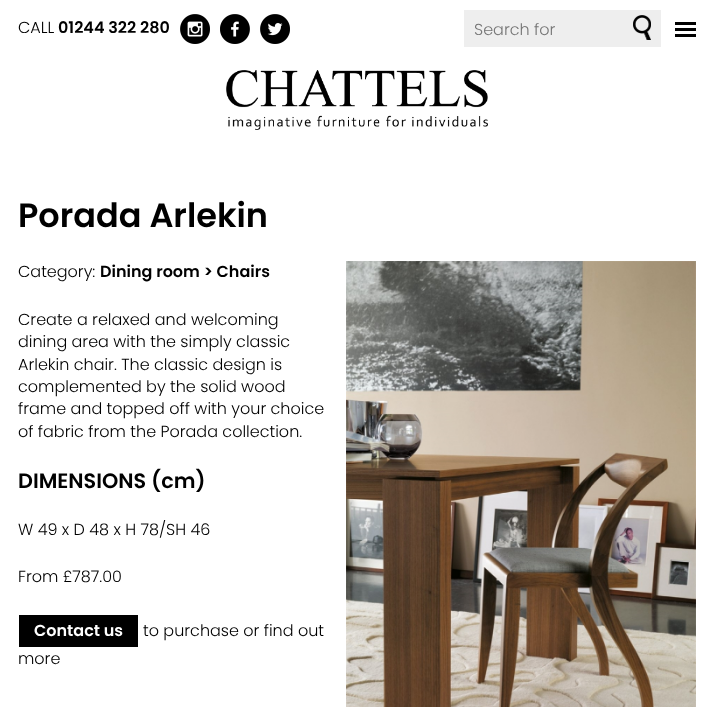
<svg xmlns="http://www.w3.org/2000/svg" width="714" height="707">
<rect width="100%" height="100%" fill="#fff"/>
<text x="18" y="33" style="font-family:Poppins;font-size:16px;font-weight:300;fill:#000">CALL</text>
<text x="58" y="33" style="font-family:Poppins;font-size:16px;font-weight:600;fill:#000">01244 322 280</text>
<image x="180" y="14" width="30" height="30" href="media/1.png"/>
<image x="220" y="14" width="30" height="30" href="media/2.png"/>
<image x="260" y="14" width="30" height="30" href="media/3.png"/>
<rect x="464" y="10" width="197" height="37" fill="#eee"/>
<text x="474" y="35" style="font-family:Poppins;font-size:16px;font-weight:300;fill:#757575">Search for</text>
<image x="633" y="15" width="18" height="25" href="media/4.png"/>
<image x="675" y="22" width="21" height="15" href="media/5.png"/>
<image x="226" y="70" width="262" height="60" href="media/6.png"/>
<text x="18" y="227" style="font-family:Poppins;font-size:33.5px;font-weight:600;fill:#000">Porada Arlekin</text>
<text x="18" y="277" style="font-family:Poppins;font-size:16px;font-weight:300;fill:#000">Category:</text>
<text x="100" y="277" style="font-family:Poppins;font-size:16px;font-weight:600;fill:#000">Dining room &gt; Chairs</text>
<image x="346" y="261" width="350" height="446" href="media/7.png"/>
<text x="18" y="325" style="font-family:Poppins;font-size:16px;font-weight:300;fill:#000">Create a relaxed and welcoming</text>
<text x="18" y="347" style="font-family:Poppins;font-size:16px;font-weight:300;fill:#000">dining area with the simply classic</text>
<text x="18" y="370" style="font-family:Poppins;font-size:16px;font-weight:300;fill:#000">Arlekin chair. The classic design is</text>
<text x="18" y="392" style="font-family:Poppins;font-size:16px;font-weight:300;fill:#000">complemented by the solid wood</text>
<text x="18" y="414" style="font-family:Poppins;font-size:16px;font-weight:300;fill:#000">frame and topped off with your choice</text>
<text x="18" y="437" style="font-family:Poppins;font-size:16px;font-weight:300;fill:#000">of fabric from the Porada collection.</text>
<text x="18" y="488" style="font-family:Poppins;font-size:20.75px;font-weight:600;fill:#000">DIMENSIONS (cm)</text>
<text x="18" y="535" style="font-family:Poppins;font-size:16px;font-weight:300;fill:#000">W 49 x D 48 x H 78/SH 46</text>
<text x="18" y="582" style="font-family:Poppins;font-size:16px;font-weight:300;fill:#000">From £787.00</text>
<rect x="19" y="615" width="119" height="32" fill="#000"/>
<text x="34" y="636" style="font-family:Poppins;font-size:16px;font-weight:600;fill:#fff">Contact us</text>
<text x="143" y="636" style="font-family:Poppins;font-size:16px;font-weight:300;fill:#000">to purchase or find out</text>
<text x="18" y="664" style="font-family:Poppins;font-size:16px;font-weight:300;fill:#000">more</text>
</svg>
